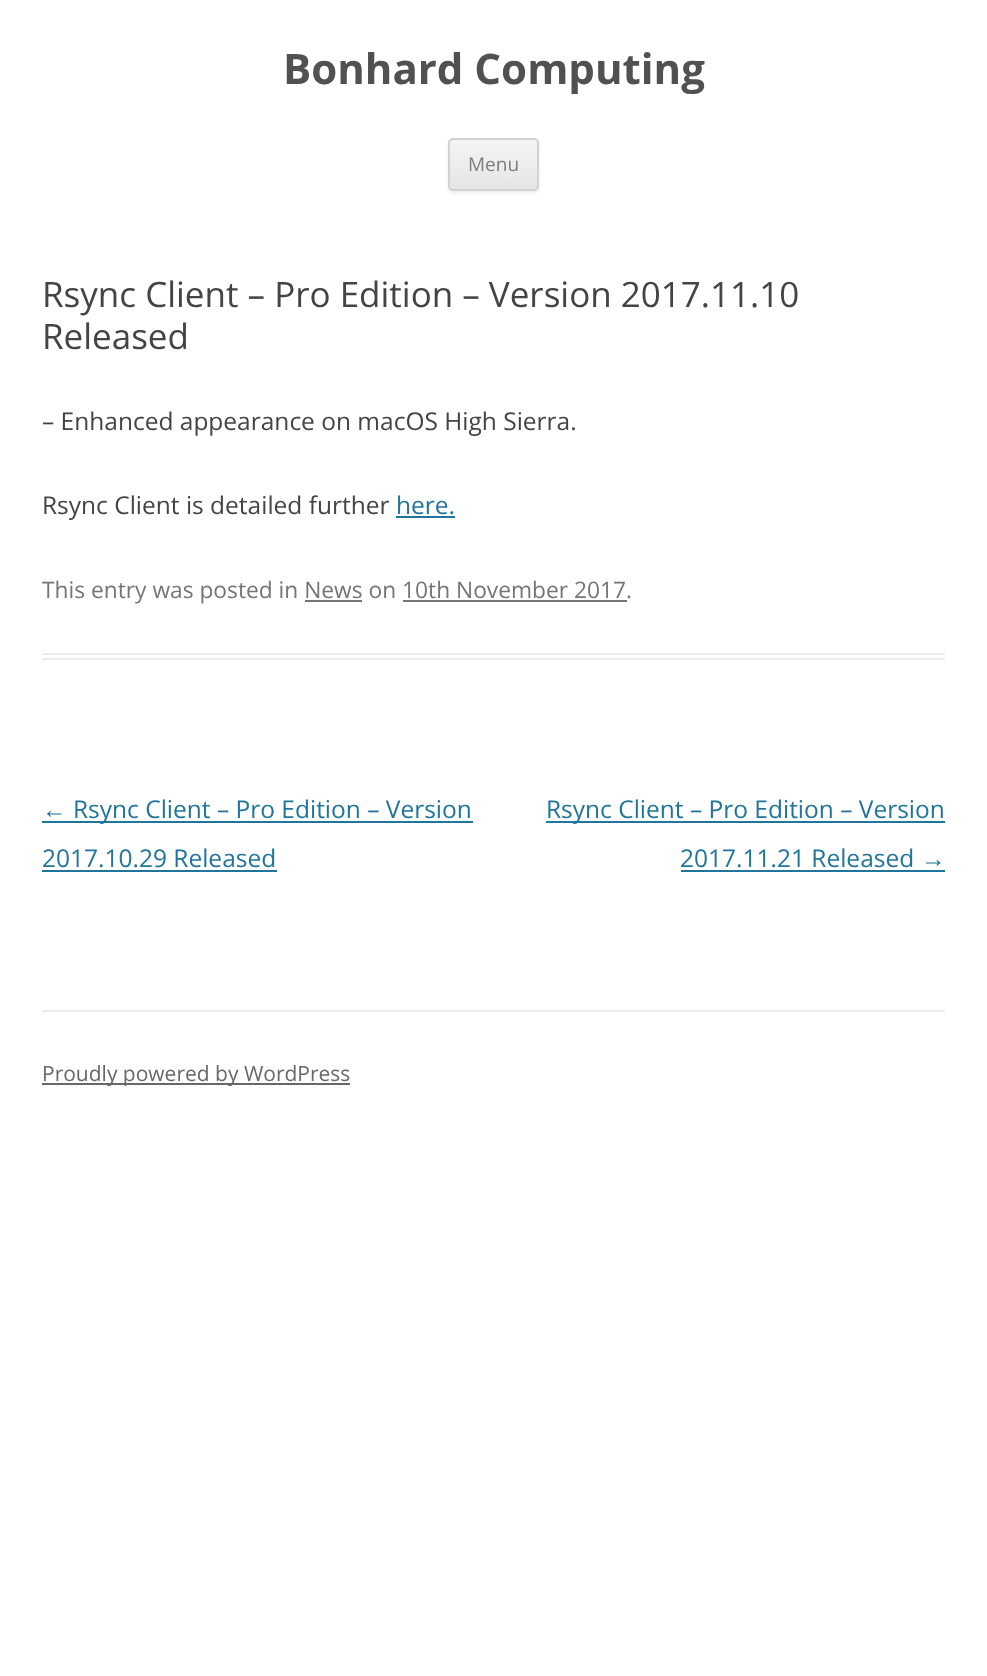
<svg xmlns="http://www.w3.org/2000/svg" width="987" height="1676">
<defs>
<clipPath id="clip1"><rect x="448" y="138" width="91" height="53" rx="5"/></clipPath>
<linearGradient id="g1" gradientUnits="userSpaceOnUse" x1="494" y1="140" x2="494" y2="189"><stop offset="0" stop-color="#f4f4f4"/><stop offset="1" stop-color="#e6e6e6"/></linearGradient>
</defs>
<rect width="100%" height="100%" fill="#fff"/>
<text x="283" y="84" style="font-family:Open Sans;font-size:42px;font-weight:bold;fill:#515151">Bonhard Computing</text>
<rect x="448" y="140" width="91" height="53" rx="5" fill="#4040401a" filter="blur(2px)"/>
<g clip-path="url(#clip1)">
<rect x="448" y="140" width="91" height="49" fill="url(#g1)"/>
</g>
<rect x="449" y="139" width="89" height="51" rx="4" fill="none" stroke="#d2d2d2" stroke-width="2"/>
<text x="468" y="171" style="font-family:Open Sans;font-size:19px;fill:#7c7c7c">Menu</text>
<rect x="42" y="653" width="903" height="2" fill="#ededed"/>
<rect x="42" y="658" width="903" height="2" fill="#ededed"/>
<text x="42" y="307" style="font-family:Open Sans;font-size:35px;fill:#444">Rsync Client – Pro Edition – Version 2017.11.10</text>
<text x="42" y="349" style="font-family:Open Sans;font-size:35px;fill:#444">Released</text>
<text x="42" y="430" style="font-family:Open Sans;font-size:24.5px;fill:#444">– Enhanced appearance on macOS High Sierra.</text>
<text x="42" y="514" style="font-family:Open Sans;font-size:24.5px;fill:#444">Rsync Client is detailed further</text>
<text x="396" y="514" style="font-family:Open Sans;font-size:24.5px;fill:#21759b">here.</text>
<rect x="396" y="516" width="59" height="2" fill="#21759b"/>
<text x="42" y="598" style="font-family:Open Sans;font-size:22.75px;fill:#757575">This entry was posted in News on 10th November 2017.</text>
<rect x="305" y="600" width="57" height="2" fill="#757575"/>
<rect x="403" y="600" width="224" height="2" fill="#757575"/>
<text x="42" y="818" style="font-family:Liberation Sans;font-size:24.5px;fill:#21759b">←</text>
<rect x="42" y="821" width="431" height="2" fill="#21759b"/>
<text x="73" y="818" style="font-family:Open Sans;font-size:24.5px;fill:#21759b">Rsync Client – Pro Edition – Version</text>
<text x="42" y="867" style="font-family:Open Sans;font-size:24.5px;fill:#21759b">2017.10.29 Released</text>
<rect x="42" y="870" width="235" height="2" fill="#21759b"/>
<rect x="546" y="821" width="399" height="2" fill="#21759b"/>
<text x="546" y="818" style="font-family:Open Sans;font-size:24.5px;fill:#21759b">Rsync Client – Pro Edition – Version</text>
<text x="680" y="867" style="font-family:Open Sans;font-size:24.5px;fill:#21759b">2017.11.21 Released</text>
<text x="921" y="867" style="font-family:Liberation Sans;font-size:24.5px;fill:#21759b">→</text>
<rect x="681" y="870" width="264" height="2" fill="#21759b"/>
<rect x="42" y="1010" width="903" height="2" fill="#ededed"/>
<rect x="42" y="1083" width="308" height="2" fill="#686868"/>
<text x="42" y="1081" style="font-family:Open Sans;font-size:21px;fill:#686868">Proudly powered by WordPress</text>
</svg>
